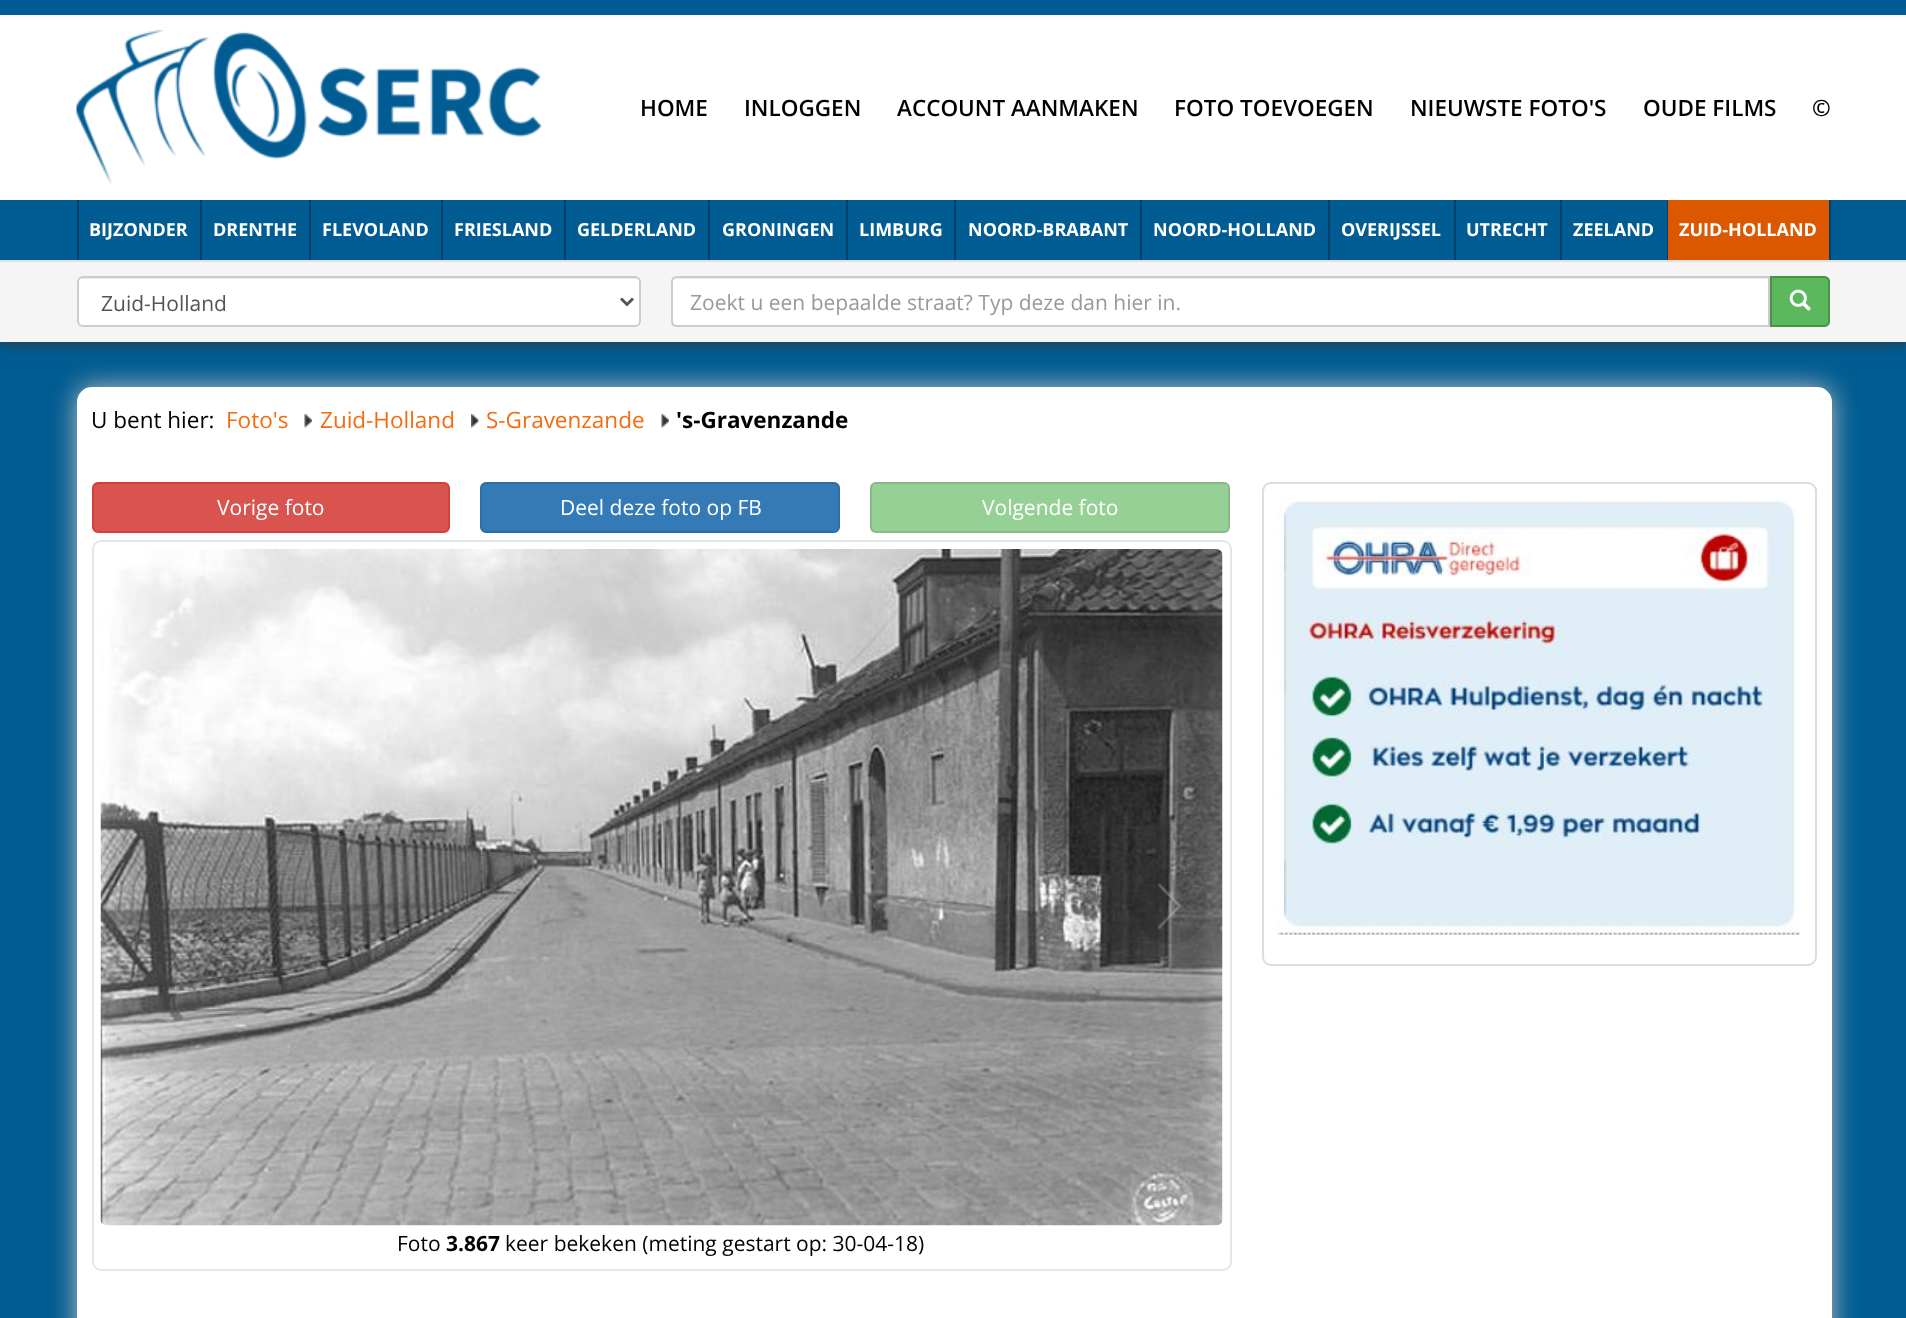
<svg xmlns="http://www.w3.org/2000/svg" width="1906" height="1318">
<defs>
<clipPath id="clip1"><rect x="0" y="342" width="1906" height="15"/></clipPath>
</defs>
<rect width="100%" height="100%" fill="#005c92"/>
<g clip-path="url(#clip1)">
<rect width="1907" height="342" fill="#333" filter="blur(7.5px)"/>
</g>
<rect y="15" width="1906" height="185" fill="#fff"/>
<image x="76" y="30" width="466" height="155" href="media/1.png"/>
<text x="640" y="116" style="font-family:Open Sans;font-size:22.5px;font-weight:600;fill:#000">HOME</text>
<text x="744" y="116" style="font-family:Open Sans;font-size:22.5px;font-weight:600;fill:#000">INLOGGEN</text>
<text x="897" y="116" style="font-family:Open Sans;font-size:22.5px;font-weight:600;fill:#000">ACCOUNT AANMAKEN</text>
<text x="1174" y="116" style="font-family:Open Sans;font-size:22.5px;font-weight:600;fill:#000">FOTO TOEVOEGEN</text>
<text x="1410" y="116" style="font-family:Open Sans;font-size:22.5px;font-weight:600;fill:#000">NIEUWSTE FOTO'S</text>
<text x="1643" y="116" style="font-family:Open Sans;font-size:22.5px;font-weight:600;fill:#000">OUDE FILMS</text>
<text x="1812" y="116" style="font-family:Open Sans;font-size:22.5px;font-weight:600;fill:#000">©</text>
<rect x="77" y="200" width="2" height="60" fill="#004066"/>
<rect x="200" y="200" width="2" height="60" fill="#004066"/>
<text x="89" y="236" style="font-family:Open Sans;font-size:18px;font-weight:bold;fill:#fff">BIJZONDER</text>
<rect x="309" y="200" width="2" height="60" fill="#004066"/>
<text x="213" y="236" style="font-family:Open Sans;font-size:18px;font-weight:bold;fill:#fff">DRENTHE</text>
<rect x="441" y="200" width="2" height="60" fill="#004066"/>
<text x="322" y="236" style="font-family:Open Sans;font-size:18px;font-weight:bold;fill:#fff">FLEVOLAND</text>
<rect x="564" y="200" width="2" height="60" fill="#004066"/>
<text x="454" y="236" style="font-family:Open Sans;font-size:18px;font-weight:bold;fill:#fff">FRIESLAND</text>
<rect x="708" y="200" width="2" height="60" fill="#004066"/>
<text x="577" y="236" style="font-family:Open Sans;font-size:18px;font-weight:bold;fill:#fff">GELDERLAND</text>
<rect x="846" y="200" width="2" height="60" fill="#004066"/>
<text x="722" y="236" style="font-family:Open Sans;font-size:18px;font-weight:bold;fill:#fff">GRONINGEN</text>
<rect x="954" y="200" width="2" height="60" fill="#004066"/>
<text x="859" y="236" style="font-family:Open Sans;font-size:18px;font-weight:bold;fill:#fff">LIMBURG</text>
<rect x="1140" y="200" width="2" height="60" fill="#004066"/>
<text x="968" y="236" style="font-family:Open Sans;font-size:18px;font-weight:bold;fill:#fff">NOORD-BRABANT</text>
<rect x="1328" y="200" width="2" height="60" fill="#004066"/>
<text x="1153" y="236" style="font-family:Open Sans;font-size:18px;font-weight:bold;fill:#fff">NOORD-HOLLAND</text>
<rect x="1454" y="200" width="2" height="60" fill="#004066"/>
<text x="1341" y="236" style="font-family:Open Sans;font-size:18px;font-weight:bold;fill:#fff">OVERIJSSEL</text>
<rect x="1560" y="200" width="2" height="60" fill="#004066"/>
<text x="1466" y="236" style="font-family:Open Sans;font-size:18px;font-weight:bold;fill:#fff">UTRECHT</text>
<rect x="1667" y="200" width="1" height="60" fill="#004066"/>
<text x="1573" y="236" style="font-family:Open Sans;font-size:18px;font-weight:bold;fill:#fff">ZEELAND</text>
<rect x="1829" y="200" width="2" height="60" fill="#004066"/>
<rect x="1668" y="200" width="161" height="60" fill="#db5800"/>
<text x="1679" y="236" style="font-family:Open Sans;font-size:18px;font-weight:bold;fill:#fff">ZUID-HOLLAND</text>
<rect y="262" width="1906" height="80" fill="#f5f5f5"/>
<rect y="260" width="1906" height="2" fill="#e0e0e0"/>
<rect x="77" y="276" width="564" height="51" rx="6" fill="#fff"/>
<path d="M82 279h552c3 0 5 2 5 5c0-3-2-6-5-6h-551c-3 0-5 3-5 6c0-3 2-5 4-5z" fill="#ececec"/>
<rect x="78" y="277" width="562" height="49" rx="5" fill="none" stroke="#ccc" stroke-width="2"/>
<path d="M621 298.5l6 6l6-6" fill="none" stroke="#555" stroke-width="3"/>
<text x="101" y="311" style="font-family:Open Sans;font-size:21px;fill:#555">Zuid-Holland</text>
<path d="M677 276h1093v51h-1093c-3.5 0-6-2.5-6-6v-39c0-3.5 2.5-6 6-6z" fill="#fff"/>
<path d="M676 279h1092v47h1v-48h-1092c-3 0-5 3-5 6c0-3 2-5 4-5z" fill="#ececec"/>
<path d="M677 277h1092v49h-1092c-3 0-5-2-5-5v-39c0-3 2-5 5-5z" fill="none" stroke="#ccc" stroke-width="2"/>
<text x="690" y="310" style="font-family:Open Sans;font-size:21px;fill:#999">Zoekt u een bepaalde straat? Typ deze dan hier in.</text>
<path d="M1770 276h54c3.5 0 6 2.5 6 6v39c0 3.5-2.5 6-6 6h-54z" fill="#5cb85c"/>
<path d="M1771 277h53c3 0 5 2 5 5v39c0 3-2 5-5 5h-53z" fill="none" stroke="#00000033" stroke-width="2"/>
<image x="1789" y="289" width="22" height="22" href="media/2.png"/>
<rect x="77" y="387" width="1755" height="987" rx="15" fill="#bfbfbf" filter="blur(13.5px)"/>
<rect x="77" y="387" width="1755" height="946" rx="15" fill="#fff"/>
<text x="91" y="428" style="font-family:Open Sans;font-size:22.5px;fill:#000">U bent hier:</text>
<text x="226" y="428" style="font-family:Open Sans;font-size:22.5px;fill:#f56b0f">Foto's</text>
<image x="304" y="414" width="8" height="14" href="media/3.png"/>
<text x="320" y="428" style="font-family:Open Sans;font-size:22.5px;fill:#f56b0f">Zuid-Holland</text>
<image x="471" y="414" width="8" height="14" href="media/4.png"/>
<text x="486" y="428" style="font-family:Open Sans;font-size:22.5px;fill:#f56b0f">S-Gravenzande</text>
<image x="661" y="414" width="8" height="14" href="media/5.png"/>
<text x="676" y="428" style="font-family:Open Sans;font-size:22.5px;font-weight:bold;fill:#000">'s-Gravenzande</text>
<rect x="93" y="483" width="356" height="49" rx="5" fill="#d9534f" stroke="#d43f3a" stroke-width="2"/>
<text x="217" y="515" style="font-family:Open Sans;font-size:21px;fill:#fff">Vorige foto</text>
<rect x="481" y="483" width="358" height="49" rx="5" fill="#337ab7" stroke="#2e6da4" stroke-width="2"/>
<text x="560" y="515" style="font-family:Open Sans;font-size:21px;fill:#fff">Deel deze foto op FB</text>
<rect x="870" y="482" width="360" height="51" rx="6" fill="#95d195"/>
<rect x="871" y="483" width="358" height="49" rx="5" fill="none" stroke="#59595933" stroke-width="2"/>
<text x="982" y="515" style="font-family:Open Sans;font-size:21px;fill:#fff">Volgende foto</text>
<rect x="93" y="541" width="1138" height="729" rx="8" fill="none" stroke="#e4e7e8" stroke-width="2"/>
<image x="100" y="549" width="1123" height="677" href="media/6.png"/>
<circle cx="1170.5" cy="906.5" r="37.5" fill="#00000017"/>
<image x="1158" y="883" width="24" height="46" href="media/7.png"/>
<text x="397" y="1251" style="font-family:Open Sans;font-size:21px;fill:#000">Foto</text>
<text x="446" y="1251" style="font-family:Open Sans;font-size:21px;font-weight:bold;fill:#000">3.867</text>
<text x="505" y="1251" style="font-family:Open Sans;font-size:21px;fill:#000">keer bekeken (meting gestart op: 30-04-18)</text>
<rect x="1263" y="483" width="553" height="482" rx="8" fill="none" stroke="#ddd" stroke-width="2"/>
<image x="1278" y="498" width="522" height="437" href="media/8.png"/>
</svg>
